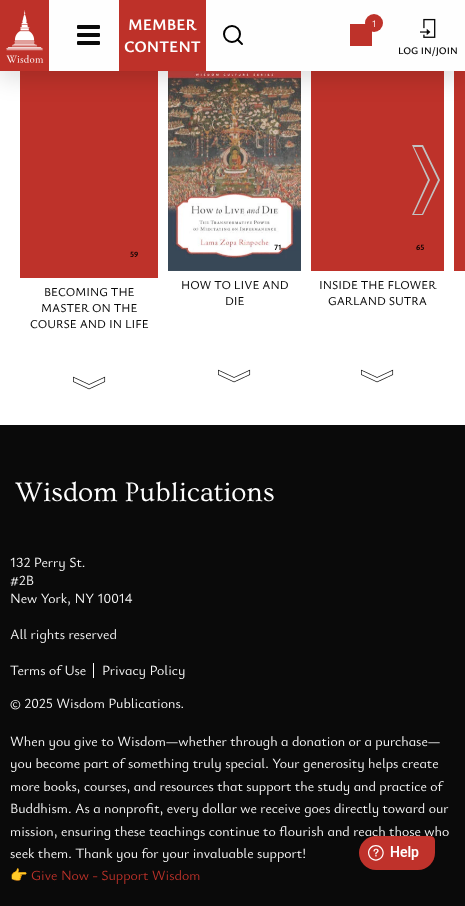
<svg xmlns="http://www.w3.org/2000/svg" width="465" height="906">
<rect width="100%" height="100%" fill="#fff"/>
<rect x="20" y="71" width="138" height="207" fill="#be322a"/>
<image x="168" y="71" width="133" height="200" href="media/4.png"/>
<rect x="311" y="71" width="133" height="200" fill="#be322a"/>
<rect x="454" y="71" width="11" height="200" fill="#be322a"/>
<rect y="6" width="465" height="71" fill="#00000026" filter="blur(12.5px)"/>
<rect x="49" width="416" height="71" fill="#fefefe"/>
<image x="0" y="0" width="49" height="71" href="media/1.png"/>
<rect x="119" width="87" height="71" fill="#be3129"/>
<text x="128" y="30" style="font-family:Ysabeau Infant;font-size:16px;font-weight:bold;fill:#fefefe">MEMBER</text>
<text x="124" y="52" style="font-family:Ysabeau Infant;font-size:16px;font-weight:bold;fill:#fefefe">CONTENT</text>
<rect x="350" y="24" width="22" height="22" fill="#be322a"/>
<circle cx="374" cy="23" r="9" fill="#be322a"/>
<text x="372" y="27" style="font-family:Ysabeau Infant;font-size:10px;fill:#fefefe">1</text>
<rect x="77" y="25" width="23" height="4" rx="1" fill="#0a0a0a"/>
<rect x="77" y="33" width="23" height="4" rx="1" fill="#0a0a0a"/>
<rect x="77" y="41" width="23" height="4" rx="1" fill="#0a0a0a"/>
<circle cx="232" cy="34" r="8" fill="none" stroke="#000" stroke-width="2"/>
<path d="M242 44l-4.5-4.5" fill="none" stroke="#000" stroke-width="2" stroke-linecap="round" stroke-linejoin="round"/>
<image x="420" y="18" width="16" height="20" href="media/2.png"/>
<text x="398" y="54" style="font-family:Ysabeau Infant;font-size:10px;font-weight:600;fill:#0a0a0a">LOG IN/JOIN</text>
<path d="M412 145h11l17 35l-17 35h-11l16-35zm10 2h-8l16 33l-16 34h8l16-34z" fill="#c2c2c2"/>
<text x="130" y="257" style="font-family:Ysabeau Infant;font-size:8px;font-weight:bold;fill:#000">59</text>
<text x="44" y="296" style="font-family:Ysabeau Infant;font-size:12px;font-weight:500;fill:#0a0a0a">BECOMING THE</text>
<text x="41" y="312" style="font-family:Ysabeau Infant;font-size:12px;font-weight:500;fill:#0a0a0a">MASTER ON THE</text>
<text x="30" y="328" style="font-family:Ysabeau Infant;font-size:12px;font-weight:500;fill:#0a0a0a">COURSE AND IN LIFE</text>
<image x="73" y="376" width="33" height="14" href="media/3.png"/>
<text x="274" y="250" style="font-family:Ysabeau Infant;font-size:8px;font-weight:bold;fill:#000">71</text>
<text x="181" y="289" style="font-family:Ysabeau Infant;font-size:12px;font-weight:500;fill:#0a0a0a">HOW TO LIVE AND</text>
<text x="225" y="305" style="font-family:Ysabeau Infant;font-size:12px;font-weight:500;fill:#0a0a0a">DIE</text>
<image x="218" y="369" width="33" height="14" href="media/3.png"/>
<text x="416" y="250" style="font-family:Ysabeau Infant;font-size:8px;font-weight:bold;fill:#000">65</text>
<text x="319" y="289" style="font-family:Ysabeau Infant;font-size:12px;font-weight:500;fill:#0a0a0a">INSIDE THE FLOWER</text>
<text x="328" y="305" style="font-family:Ysabeau Infant;font-size:12px;font-weight:500;fill:#0a0a0a">GARLAND SUTRA</text>
<image x="361" y="369" width="33" height="14" href="media/3.png"/>
<rect y="425" width="465" height="481" fill="#0a0a0a"/>
<text x="15" y="501" style="font-family:Ovo;font-size:28px;fill:#fefefe">Wisdom Publications</text>
<text x="10" y="567" style="font-family:Ysabeau Infant;font-size:14px;fill:#fefefe">132 Perry St.</text>
<text x="10" y="585" style="font-family:Ysabeau Infant;font-size:14px;fill:#fefefe">#2B</text>
<text x="10" y="603" style="font-family:Ysabeau Infant;font-size:14px;fill:#fefefe">New York, NY 10014</text>
<text x="10" y="639" style="font-family:Ysabeau Infant;font-size:14px;fill:#fefefe">All rights reserved</text>
<text x="10" y="675" style="font-family:Ysabeau Infant;font-size:14px;fill:#fefefe">Terms of Use</text>
<rect x="93" y="663" width="1" height="15" fill="#fefefe"/>
<text x="102" y="675" style="font-family:Ysabeau Infant;font-size:14px;fill:#fefefe">Privacy Policy</text>
<text x="10" y="708" style="font-family:Ysabeau Infant;font-size:14px;fill:#fefefe">© 2025 Wisdom Publications.</text>
<text x="10" y="746" style="font-family:Ysabeau Infant;font-size:14px;fill:#fefefe">When you give to Wisdom—whether through a donation or a purchase—</text>
<text x="10" y="768" style="font-family:Ysabeau Infant;font-size:14px;fill:#fefefe">you become part of something truly special. Your generosity helps create</text>
<text x="10" y="791" style="font-family:Ysabeau Infant;font-size:14px;fill:#fefefe">more books, courses, and resources that support the study and practice of</text>
<text x="10" y="813" style="font-family:Ysabeau Infant;font-size:14px;fill:#fefefe">Buddhism. As a nonprofit, every dollar we receive goes directly toward our</text>
<text x="10" y="836" style="font-family:Ysabeau Infant;font-size:14px;fill:#fefefe">mission, ensuring these teachings continue to flourish and reach those who</text>
<text x="10" y="858" style="font-family:Ysabeau Infant;font-size:14px;fill:#fefefe">seek them. Thank you for your invaluable support!</text>
<text x="10" y="880" style="font-family:Noto Color Emoji;font-size:14px;fill:#be322a">👉</text>
<text x="31" y="880" style="font-family:Ysabeau Infant;font-size:14px;fill:#be322a">Give Now - Support Wisdom</text>
<image x="359" y="836" width="77" height="34" href="media/5.png"/>
</svg>
